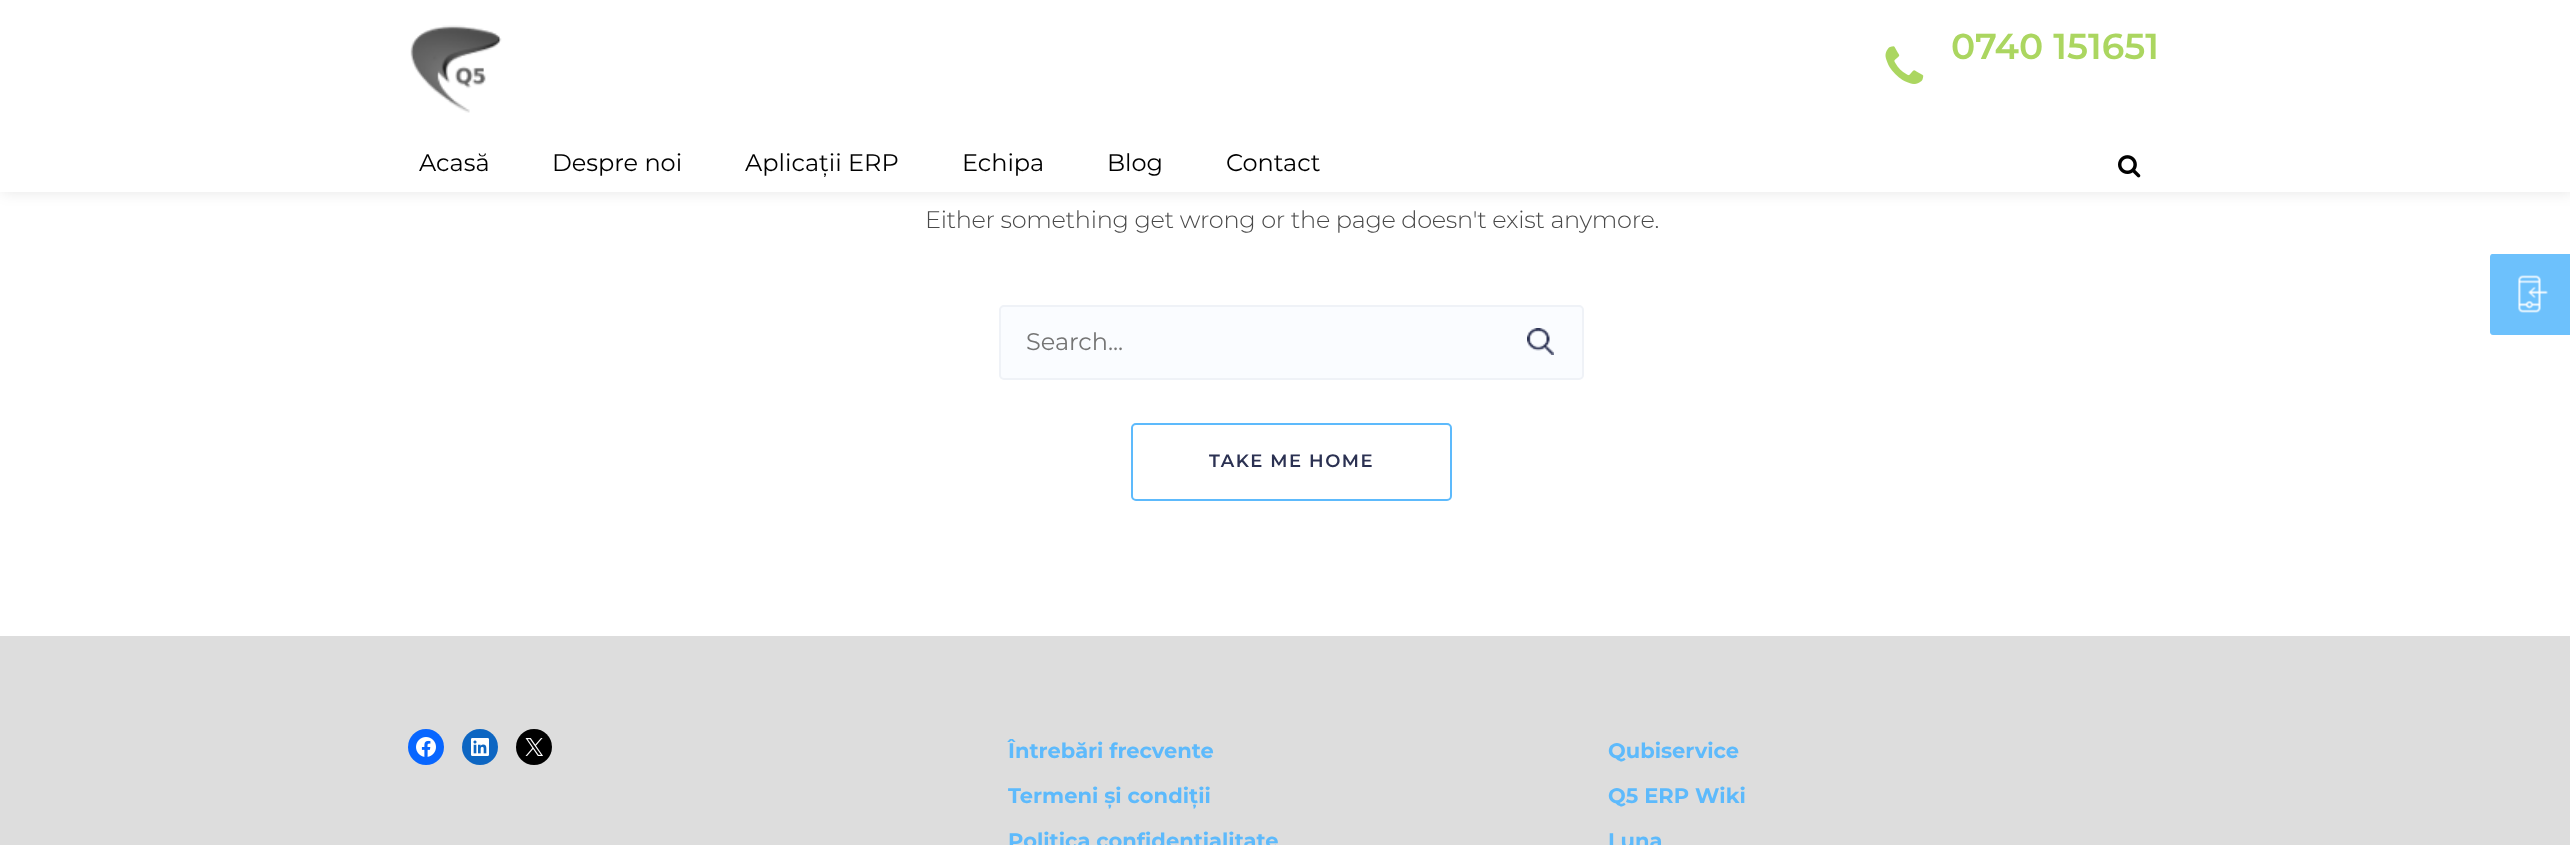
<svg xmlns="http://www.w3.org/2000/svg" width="2570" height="845">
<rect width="100%" height="100%" fill="#fff"/>
<rect x="2" width="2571" height="192" fill="#0000001a" filter="blur(7.5px)"/>
<rect width="2570" height="192" fill="#fff"/>
<image x="410" y="25" width="92" height="88" href="media/1.png"/>
<image x="1885" y="46" width="39" height="38" href="media/2.png"/>
<text x="1951" y="59" style="font-family:Montserrat;font-size:36px;font-weight:600;fill:#abd660">0740 151651</text>
<text x="419" y="171" style="font-family:Montserrat;font-size:24px;fill:#000">Acasă</text>
<text x="552" y="171" style="font-family:Montserrat;font-size:24px;fill:#000">Despre noi</text>
<text x="745" y="171" style="font-family:Montserrat;font-size:24px;fill:#000">Aplicații ERP</text>
<text x="962" y="171" style="font-family:Montserrat;font-size:24px;fill:#000">Echipa</text>
<text x="1107" y="171" style="font-family:Montserrat;font-size:24px;fill:#000">Blog</text>
<text x="1226" y="171" style="font-family:Montserrat;font-size:24px;fill:#000">Contact</text>
<image x="2118" y="155" width="23" height="23" href="media/3.png"/>
<text x="925" y="228" style="font-family:Montserrat;font-size:24px;font-weight:300;letter-spacing:-0.3px;fill:#494949">Either something get wrong or the page doesn't exist anymore.</text>
<rect x="1000" y="306" width="583" height="73" rx="4" fill="#fafcff" stroke="#eff2f7" stroke-width="2"/>
<text x="1026" y="350" style="font-family:Montserrat;font-size:24px;fill:#757575">Search...</text>
<image x="1527" y="328" width="27" height="27" href="media/4.png"/>
<rect x="1132" y="424" width="319" height="76" rx="4" fill="none" stroke="#5dbafc" stroke-width="2"/>
<text x="1209" y="467" style="font-family:Montserrat;font-size:18px;font-weight:600;letter-spacing:1.5px;fill:#2b3152">TAKE ME HOME</text>
<path d="M2490 332v-75c0-2 1-3 3-3h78v81h-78c-2 0-3-2-3-3z" fill="#6dc1fc"/>
<image x="2518" y="275" width="30" height="38" href="media/5.png"/>
<rect y="636" width="2570" height="209" fill="#ddd"/>
<circle cx="426" cy="747" r="18" fill="#0866ff"/>
<image x="416" y="737" width="20" height="20" href="media/6.png"/>
<circle cx="480" cy="747" r="18" fill="#0d66c2"/>
<image x="471" y="738" width="18" height="18" href="media/7.png"/>
<circle cx="534" cy="747" r="18" fill="#000"/>
<image x="525" y="738" width="18" height="18" href="media/8.png"/>
<text x="1008" y="758" style="font-family:Montserrat;font-size:21px;font-weight:bold;fill:#5dbafc">Întrebări frecvente</text>
<text x="1008" y="803" style="font-family:Montserrat;font-size:21px;font-weight:bold;fill:#5dbafc">Termeni și condiții</text>
<text x="1008" y="848" style="font-family:Montserrat;font-size:21px;font-weight:bold;fill:#5dbafc">Politica confidențialitate</text>
<text x="1608" y="758" style="font-family:Montserrat;font-size:21px;font-weight:bold;fill:#5dbafc">Qubiservice</text>
<text x="1608" y="803" style="font-family:Montserrat;font-size:21px;font-weight:bold;fill:#5dbafc">Q5 ERP Wiki</text>
<text x="1608" y="848" style="font-family:Montserrat;font-size:21px;font-weight:bold;fill:#5dbafc">Luna</text>
</svg>
